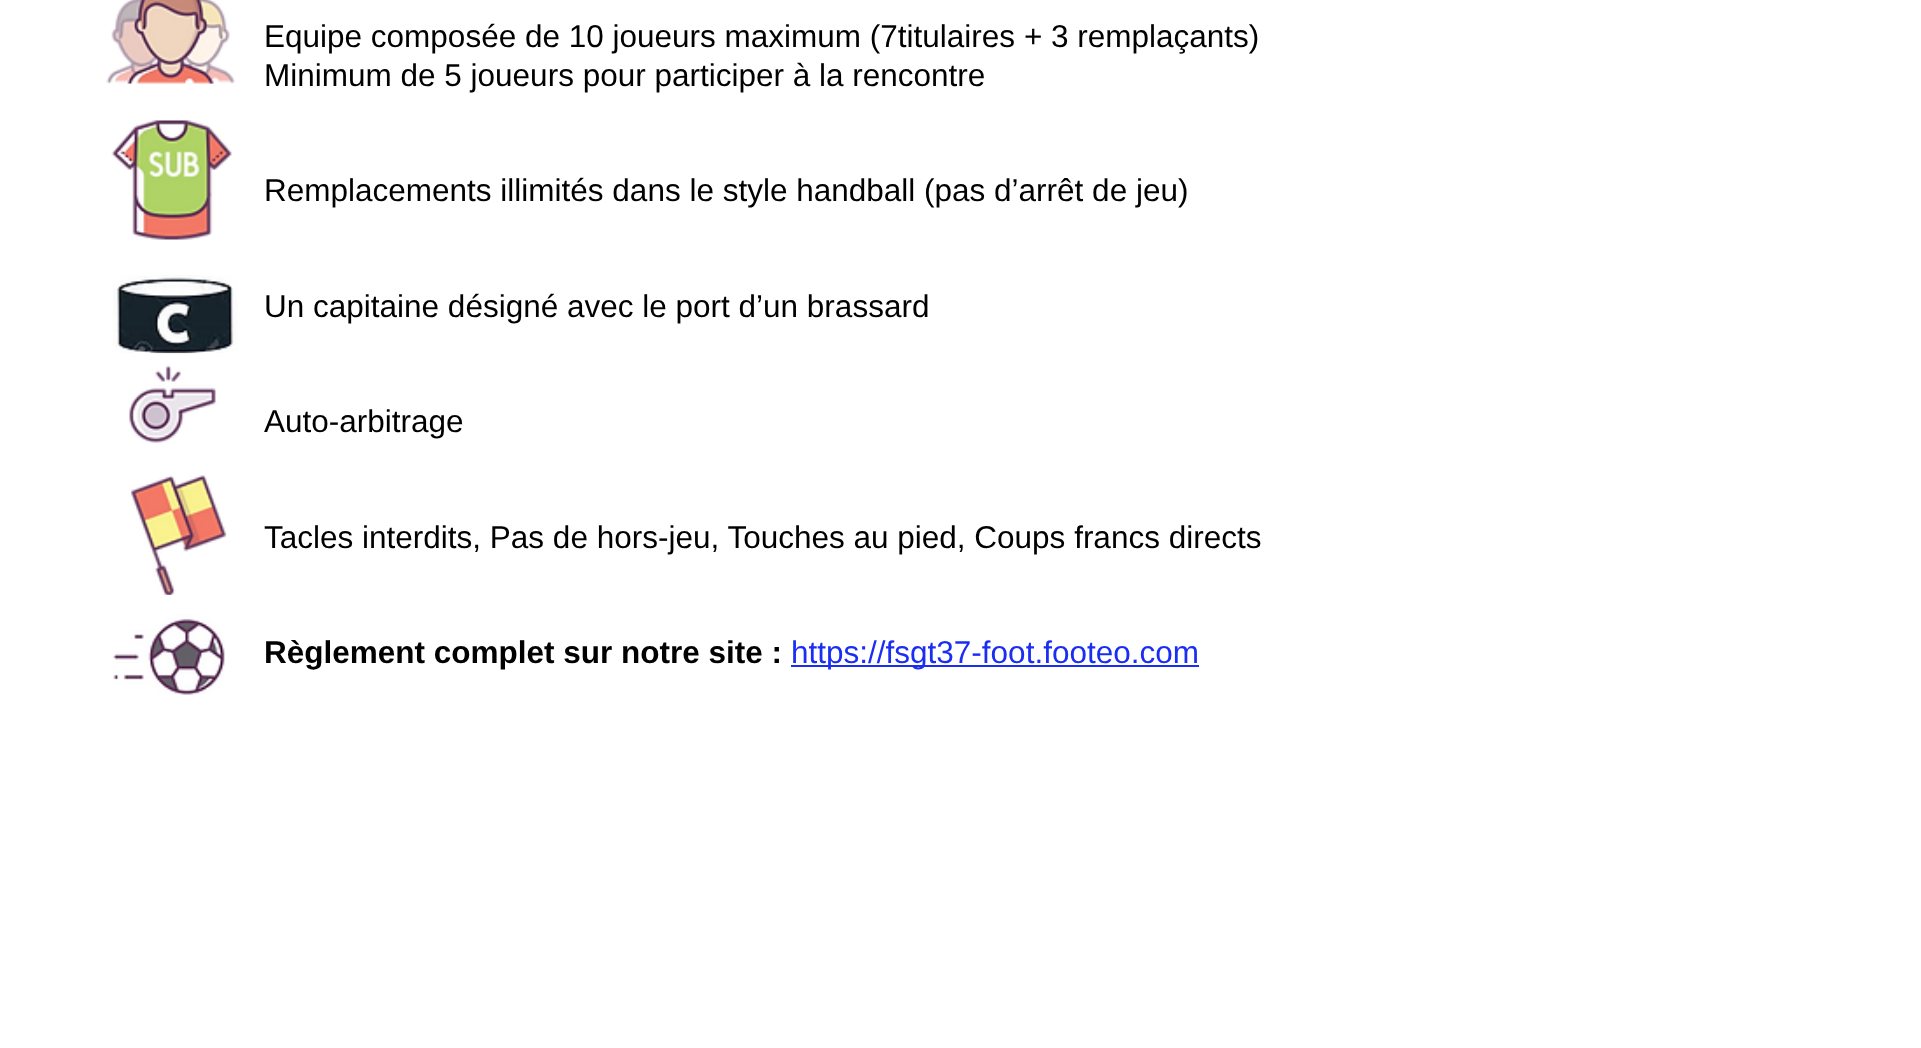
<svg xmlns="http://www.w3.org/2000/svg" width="1921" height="1048">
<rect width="100%" height="100%" fill="#fff"/>
<image x="106" y="0" width="129" height="84" href="media/1.png"/>
<text x="264" y="47" style="font-family:Liberation Sans;font-size:31.5px;fill:#000">Equipe composée de 10 joueurs maximum (7titulaires + 3 remplaçants)</text>
<text x="264" y="86" style="font-family:Liberation Sans;font-size:31.5px;fill:#000">Minimum de 5 joueurs pour participer à la rencontre</text>
<text x="264" y="201" style="font-family:Liberation Sans;font-size:31.5px;fill:#000">Remplacements illimités dans le style handball (pas d’arrêt de jeu)</text>
<text x="264" y="317" style="font-family:Liberation Sans;font-size:31.5px;fill:#000">Un capitaine désigné avec le port d’un brassard</text>
<text x="264" y="432" style="font-family:Liberation Sans;font-size:31.5px;fill:#000">Auto-arbitrage</text>
<text x="264" y="548" style="font-family:Liberation Sans;font-size:31.5px;fill:#000">Tacles interdits, Pas de hors-jeu, Touches au pied, Coups francs directs</text>
<text x="264" y="663" style="font-family:Liberation Sans;font-size:31.5px;font-weight:bold;fill:#000">Règlement complet sur notre site :</text>
<rect x="791" y="665" width="408" height="2" fill="#1a2df3"/>
<text x="791" y="663" style="font-family:Liberation Sans;font-size:31.5px;fill:#1a2df3">https://fsgt37-foot.footeo.com</text>
<image x="111" y="120" width="121" height="120" href="media/2.png"/>
<image x="112" y="275" width="126" height="79" href="media/3.png"/>
<image x="129" y="365" width="87" height="78" href="media/4.png"/>
<image x="130" y="475" width="97" height="120" href="media/5.png"/>
<image x="113" y="594" width="112" height="101" href="media/6.png"/>
</svg>
